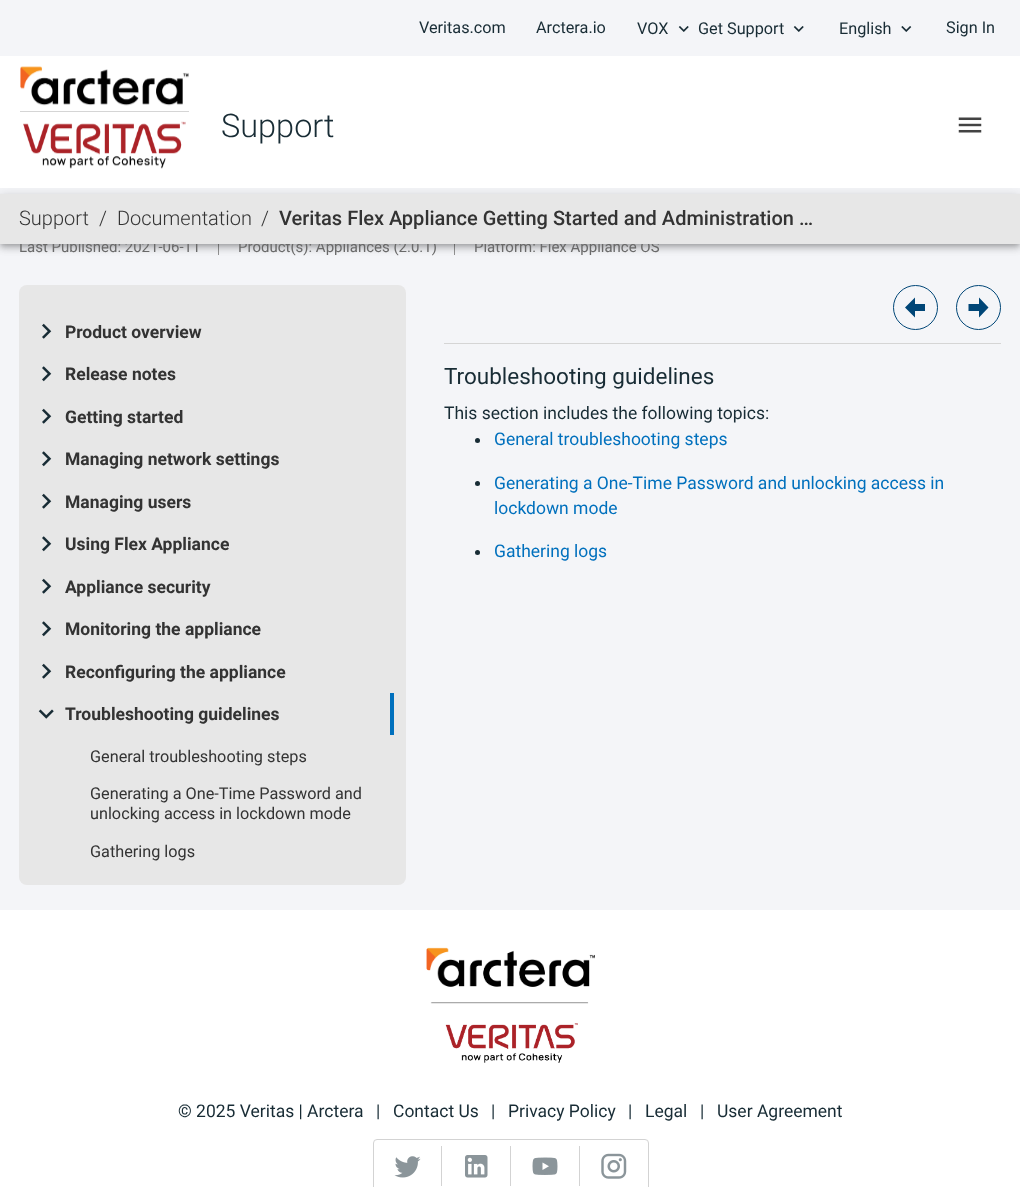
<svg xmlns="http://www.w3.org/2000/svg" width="1020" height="1187">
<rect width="100%" height="100%" fill="#f4f5f8"/>
<text x="419" y="33" style="font-family:Roboto;font-size:16.25px;fill:#182c35">Veritas.com</text>
<text x="536" y="33" style="font-family:Roboto;font-size:16.25px;fill:#182c35">Arctera.io</text>
<text x="637" y="34" style="font-family:Roboto;font-size:16.25px;fill:#182c35">VOX</text>
<image x="678" y="26" width="11" height="6" href="media/1.png"/>
<text x="698" y="34" style="font-family:Roboto;font-size:16.25px;fill:#182c35">Get Support</text>
<image x="793" y="26" width="11" height="6" href="media/1.png"/>
<text x="839" y="34" style="font-family:Roboto;font-size:16.25px;fill:#182c35">English</text>
<image x="901" y="26" width="11" height="6" href="media/2.png"/>
<text x="946" y="33" style="font-family:Roboto;font-size:16.25px;fill:#182c35">Sign In</text>
<rect x="218" y="236" width="1" height="19" fill="#939393"/>
<rect x="454" y="236" width="1" height="19" fill="#939393"/>
<rect y="195" width="1020" height="50" fill="#0000001f" filter="blur(6px)"/>
<rect y="56" width="1020" height="132" fill="#fff"/>
<image x="20" y="66" width="169" height="40" href="media/3.png"/>
<rect x="20" y="111" width="169" height="1" fill="#d5d5d5"/>
<image x="23" y="121" width="163" height="48" href="media/4.png"/>
<text x="221" y="137" style="font-family:Roboto;font-size:32.5px;font-weight:300;fill:#182c35">Support</text>
<image x="958" y="117" width="24" height="16" href="media/5.png"/>
<rect y="199" width="1020" height="50" fill="#00000024" filter="blur(3px)"/>
<rect x="1" y="198" width="1018" height="47" fill="#00000033" filter="blur(2.5px)"/>
<text x="19" y="252" style="font-family:Roboto;font-size:15px;fill:#696969">Last Published: 2021-06-11</text>
<text x="238" y="252" style="font-family:Roboto;font-size:15px;fill:#696969">Product(s): Appliances (2.0.1)</text>
<text x="474" y="252" style="font-family:Roboto;font-size:15px;fill:#696969">Platform: Flex Appliance OS</text>
<rect y="194" width="1020" height="50" fill="#e7e7e7"/>
<text x="19" y="225" style="font-family:Roboto;font-size:20px;font-weight:300;fill:#333">Support</text>
<text x="99" y="225" style="font-family:Roboto;font-size:20px;font-weight:300;fill:#333">/</text>
<text x="117" y="225" style="font-family:Roboto;font-size:20px;font-weight:300;fill:#333">Documentation</text>
<text x="261" y="225" style="font-family:Roboto;font-size:20px;font-weight:300;fill:#333">/</text>
<text x="279" y="225" style="font-family:Roboto;font-size:20px;font-weight:500;fill:#333">Veritas Flex Appliance Getting Started and Administration …</text>
<rect x="19" y="285" width="387" height="600" rx="8" fill="#e7e7e7"/>
<image x="42" y="323" width="10" height="16" href="media/6.png"/>
<text x="65" y="338" style="font-family:Roboto;font-size:17.5px;font-weight:bold;fill:#333">Product overview</text>
<image x="42" y="366" width="10" height="16" href="media/7.png"/>
<text x="65" y="380" style="font-family:Roboto;font-size:17.5px;font-weight:bold;fill:#333">Release notes</text>
<image x="42" y="408" width="10" height="16" href="media/6.png"/>
<text x="65" y="423" style="font-family:Roboto;font-size:17.5px;font-weight:bold;fill:#333">Getting started</text>
<image x="42" y="451" width="10" height="16" href="media/7.png"/>
<text x="65" y="465" style="font-family:Roboto;font-size:17.5px;font-weight:bold;fill:#333">Managing network settings</text>
<image x="42" y="493" width="10" height="16" href="media/6.png"/>
<text x="65" y="508" style="font-family:Roboto;font-size:17.5px;font-weight:bold;fill:#333">Managing users</text>
<image x="42" y="536" width="10" height="16" href="media/7.png"/>
<text x="65" y="550" style="font-family:Roboto;font-size:17.5px;font-weight:bold;fill:#333">Using Flex Appliance</text>
<image x="42" y="578" width="10" height="16" href="media/6.png"/>
<text x="65" y="593" style="font-family:Roboto;font-size:17.5px;font-weight:bold;fill:#333">Appliance security</text>
<image x="42" y="621" width="10" height="16" href="media/7.png"/>
<text x="65" y="635" style="font-family:Roboto;font-size:17.5px;font-weight:bold;fill:#333">Monitoring the appliance</text>
<image x="42" y="663" width="10" height="16" href="media/6.png"/>
<text x="65" y="678" style="font-family:Roboto;font-size:17.5px;font-weight:bold;fill:#333">Reconfiguring the appliance</text>
<rect x="390" y="693" width="4" height="42" fill="#0070bd"/>
<image x="38" y="709" width="16" height="10" href="media/8.png"/>
<text x="65" y="720" style="font-family:Roboto;font-size:17.5px;font-weight:bold;fill:#333">Troubleshooting guidelines</text>
<text x="90" y="762" style="font-family:Roboto;font-size:16.25px;fill:#333">General troubleshooting steps</text>
<text x="90" y="799" style="font-family:Roboto;font-size:16.25px;fill:#333">Generating a One-Time Password and</text>
<text x="90" y="819" style="font-family:Roboto;font-size:16.25px;fill:#333">unlocking access in lockdown mode</text>
<text x="90" y="857" style="font-family:Roboto;font-size:16.25px;fill:#333">Gathering logs</text>
<rect x="444" y="343" width="557" height="1" fill="#d5d5d5"/>
<circle cx="915.5" cy="307.5" r="22" fill="none" stroke="#004677"/>
<path d="M925 304v7h-10v6.5l-10-10l10-10v6.5z" fill="#004677"/>
<circle cx="978.5" cy="307.5" r="22" fill="none" stroke="#004677"/>
<path d="M968.5 311v-7h10.5v-6.5l9.5 10l-9.5 10v-6.5z" fill="#004677"/>
<text x="444" y="384" style="font-family:Roboto;font-size:22.5px;fill:#182c35">Troubleshooting guidelines</text>
<text x="444" y="419" style="font-family:Roboto;font-size:17.5px;fill:#182c35">This section includes the following topics:</text>
<circle cx="477.5" cy="440.5" r="2.5" fill="#182c35"/>
<text x="494" y="445" style="font-family:Roboto;font-size:17.5px;fill:#0070bd">General troubleshooting steps</text>
<circle cx="477.5" cy="483.5" r="2.5" fill="#182c35"/>
<text x="494" y="489" style="font-family:Roboto;font-size:17.5px;fill:#0070bd">Generating a One-Time Password and unlocking access in</text>
<text x="494" y="514" style="font-family:Roboto;font-size:17.5px;fill:#0070bd">lockdown mode</text>
<circle cx="477.5" cy="552.5" r="2.5" fill="#182c35"/>
<text x="494" y="557" style="font-family:Roboto;font-size:17.5px;fill:#0070bd">Gathering logs</text>
<rect y="910" width="1020" height="277" fill="#fff"/>
<image x="426" y="947" width="169" height="57" href="media/9.png"/>
<image x="445" y="1023" width="133" height="40" href="media/10.png"/>
<text x="178" y="1117" style="font-family:Roboto;font-size:17.5px;fill:#182c35">© 2025 Veritas | Arctera</text>
<text x="376" y="1117" style="font-family:Roboto;font-size:17.5px;fill:#182c35">|</text>
<text x="393" y="1117" style="font-family:Roboto;font-size:17.5px;fill:#182c35">Contact Us</text>
<text x="491" y="1117" style="font-family:Roboto;font-size:17.5px;fill:#182c35">|</text>
<text x="508" y="1117" style="font-family:Roboto;font-size:17.5px;fill:#182c35">Privacy Policy</text>
<text x="628" y="1117" style="font-family:Roboto;font-size:17.5px;fill:#182c35">|</text>
<text x="645" y="1117" style="font-family:Roboto;font-size:17.5px;fill:#182c35">Legal</text>
<text x="700" y="1117" style="font-family:Roboto;font-size:17.5px;fill:#182c35">|</text>
<text x="717" y="1117" style="font-family:Roboto;font-size:17.5px;fill:#182c35">User Agreement</text>
<rect x="373.5" y="1139.5" width="275" height="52" rx="3.5" fill="none" stroke="#d3d3d3"/>
<rect x="441" y="1146" width="1" height="40" fill="#d3d3d3"/>
<image x="394" y="1156" width="27" height="22" href="media/11.png"/>
<rect x="510" y="1146" width="1" height="40" fill="#d3d3d3"/>
<image x="465" y="1155" width="23" height="23" href="media/12.png"/>
<rect x="579" y="1146" width="1" height="40" fill="#d3d3d3"/>
<image x="532" y="1157" width="26" height="18" href="media/13.png"/>
<image x="601" y="1153" width="26" height="26" href="media/14.png"/>
</svg>
